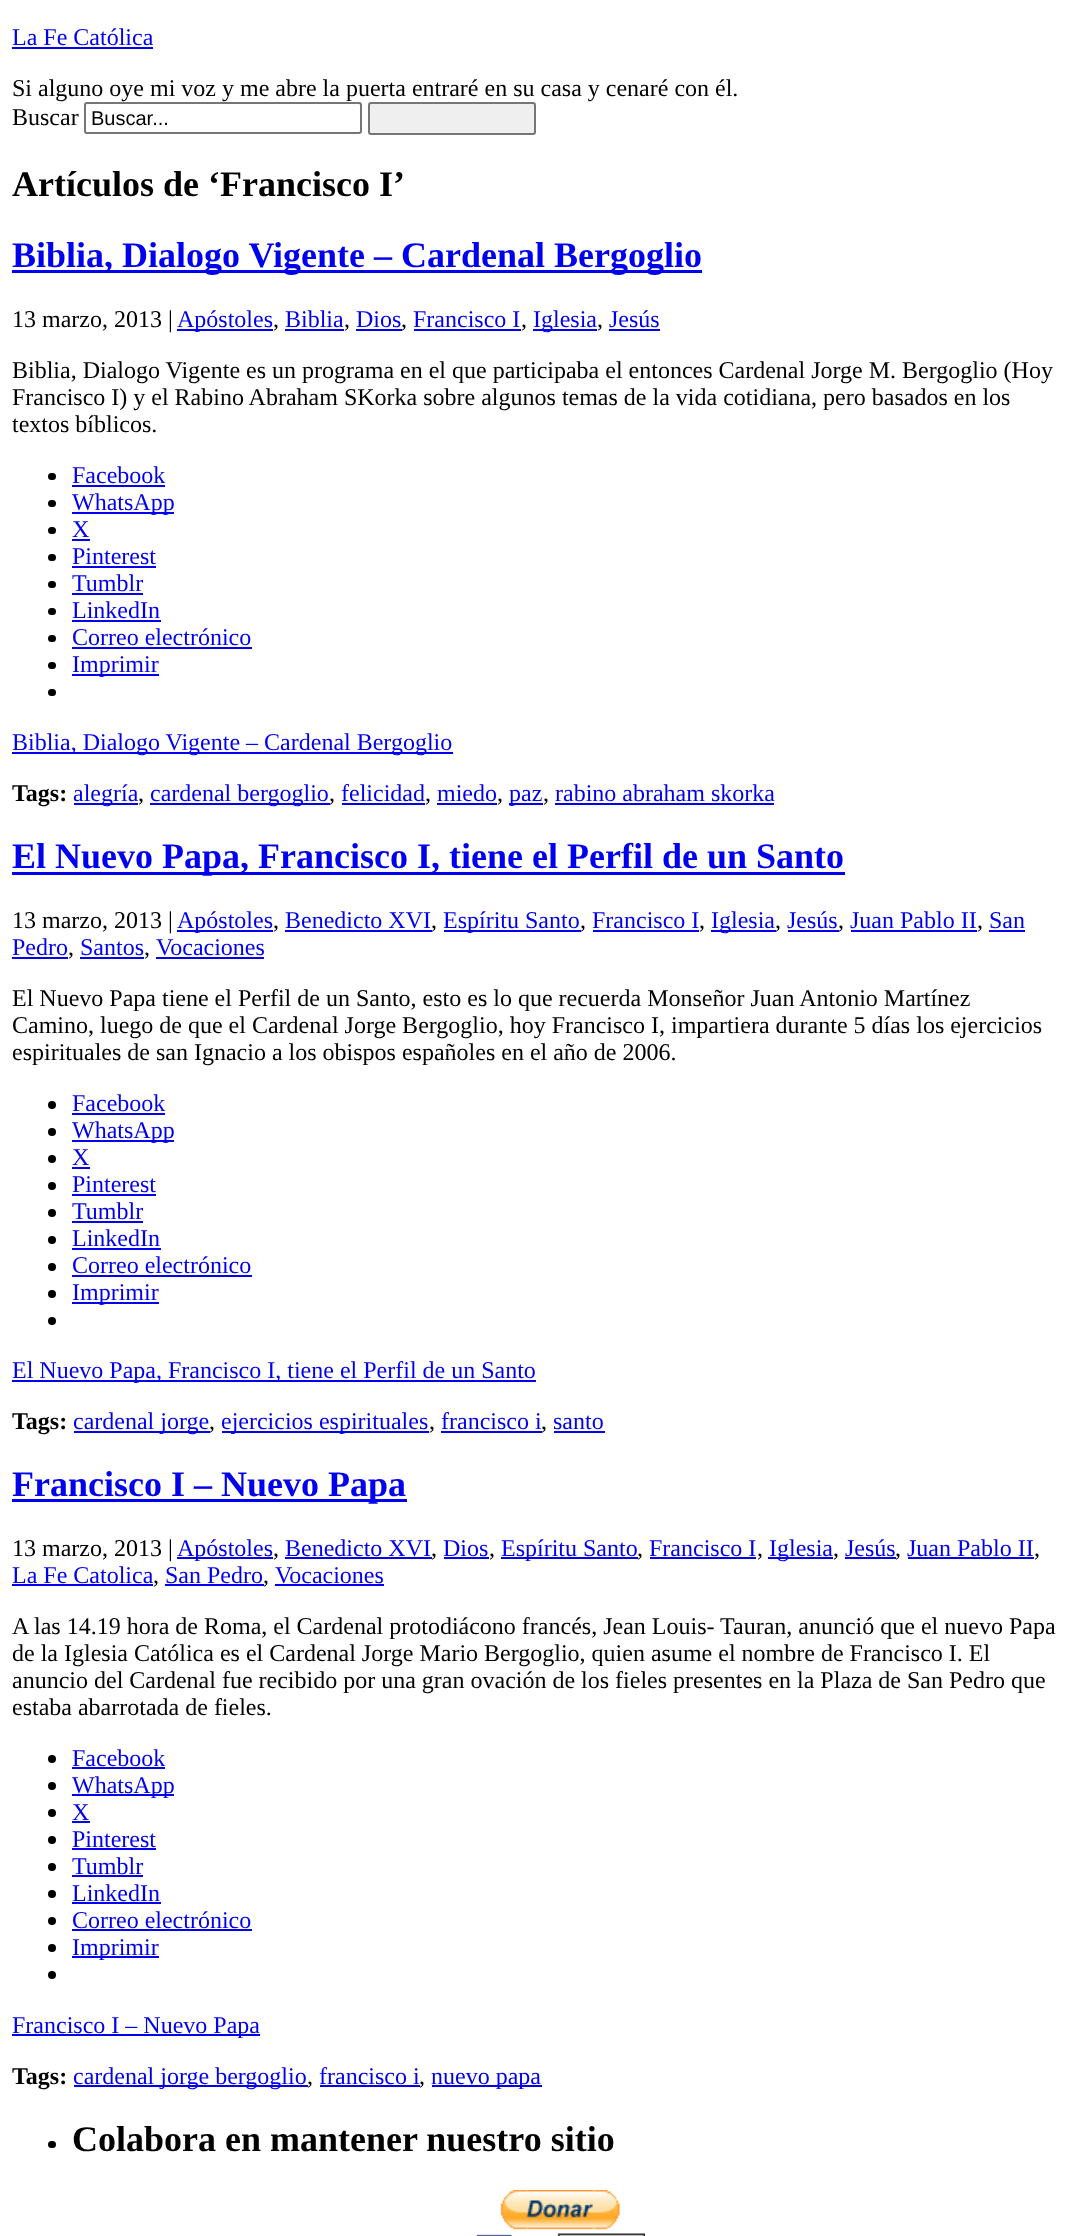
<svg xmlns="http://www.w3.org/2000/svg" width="1068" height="2236">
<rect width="100%" height="100%" fill="#fff"/>
<text x="12" y="45" style="font-family:Liberation Serif;font-size:24px;fill:#00e">La Fe Católica</text>
<rect x="12" y="47" width="141" height="2" fill="#00e"/>
<text x="12" y="96" style="font-family:Liberation Serif;font-size:24px;fill:#000">Si alguno oye mi voz y me abre la puerta entraré en su casa y cenaré con él.</text>
<text x="12" y="125" style="font-family:Liberation Serif;font-size:24px;fill:#000">Buscar</text>
<rect x="85" y="103" width="276" height="30" rx="2" fill="none" stroke="#767676" stroke-width="2"/>
<text x="91" y="125" style="font-family:Liberation Sans;font-size:20px;fill:#000">Buscar...</text>
<rect x="369" y="103" width="166" height="31" rx="2" fill="#efefef" stroke="#767676" stroke-width="2"/>
<text x="12" y="196" style="font-family:Liberation Serif;font-size:36px;font-weight:bold;fill:#000">Artículos de ‘Francisco I’</text>
<rect x="12" y="270" width="690" height="3" fill="#00e"/>
<text x="12" y="267" style="font-family:Liberation Serif;font-size:36px;font-weight:bold;fill:#00e">Biblia, Dialogo Vigente – Cardenal Bergoglio</text>
<text x="12" y="327" style="font-family:Liberation Serif;font-size:24px;fill:#000">13 marzo, 2013 |</text>
<rect x="177" y="329" width="96" height="2" fill="#00e"/>
<text x="177" y="327" style="font-family:Liberation Serif;font-size:24px;fill:#00e">Apóstoles</text>
<text x="273" y="327" style="font-family:Liberation Serif;font-size:24px;fill:#000">,</text>
<text x="285" y="327" style="font-family:Liberation Serif;font-size:24px;fill:#00e">Biblia</text>
<rect x="285" y="329" width="59" height="2" fill="#00e"/>
<text x="344" y="327" style="font-family:Liberation Serif;font-size:24px;fill:#000">,</text>
<text x="356" y="327" style="font-family:Liberation Serif;font-size:24px;fill:#00e">Dios</text>
<rect x="356" y="329" width="46" height="2" fill="#00e"/>
<text x="401" y="327" style="font-family:Liberation Serif;font-size:24px;fill:#000">,</text>
<text x="413" y="327" style="font-family:Liberation Serif;font-size:24px;fill:#00e">Francisco I</text>
<rect x="414" y="329" width="107" height="2" fill="#00e"/>
<text x="521" y="327" style="font-family:Liberation Serif;font-size:24px;fill:#000">,</text>
<rect x="533" y="329" width="64" height="2" fill="#00e"/>
<text x="533" y="327" style="font-family:Liberation Serif;font-size:24px;fill:#00e">Iglesia</text>
<text x="597" y="327" style="font-family:Liberation Serif;font-size:24px;fill:#000">,</text>
<text x="609" y="327" style="font-family:Liberation Serif;font-size:24px;fill:#00e">Jesús</text>
<rect x="609" y="329" width="51" height="2" fill="#00e"/>
<text x="12" y="378" style="font-family:Liberation Serif;font-size:24px;fill:#000">Biblia, Dialogo Vigente es un programa en el que participaba el entonces Cardenal Jorge M. Bergoglio (Hoy</text>
<text x="12" y="405" style="font-family:Liberation Serif;font-size:24px;fill:#000">Francisco I) y el Rabino Abraham SKorka sobre algunos temas de la vida cotidiana, pero basados en los</text>
<text x="12" y="432" style="font-family:Liberation Serif;font-size:24px;fill:#000">textos bíblicos.</text>
<rect x="48" y="473" width="8" height="7" rx="3.5" fill="#000"/>
<text x="72" y="483" style="font-family:Liberation Serif;font-size:24px;fill:#00e">Facebook</text>
<rect x="72" y="485" width="93" height="2" fill="#00e"/>
<rect x="48" y="500" width="8" height="7" rx="3.5" fill="#000"/>
<rect x="72" y="512" width="102" height="2" fill="#00e"/>
<text x="72" y="510" style="font-family:Liberation Serif;font-size:24px;fill:#00e">WhatsApp</text>
<rect x="48" y="527" width="8" height="7" rx="3.5" fill="#000"/>
<text x="72" y="537" style="font-family:Liberation Serif;font-size:24px;fill:#00e">X</text>
<rect x="72" y="539" width="18" height="2" fill="#00e"/>
<rect x="48" y="554" width="8" height="7" rx="3.5" fill="#000"/>
<text x="72" y="564" style="font-family:Liberation Serif;font-size:24px;fill:#00e">Pinterest</text>
<rect x="72" y="566" width="84" height="2" fill="#00e"/>
<rect x="48" y="581" width="8" height="7" rx="3.5" fill="#000"/>
<text x="72" y="591" style="font-family:Liberation Serif;font-size:24px;fill:#00e">Tumblr</text>
<rect x="72" y="593" width="71" height="2" fill="#00e"/>
<rect x="48" y="608" width="8" height="7" rx="3.5" fill="#000"/>
<text x="72" y="618" style="font-family:Liberation Serif;font-size:24px;fill:#00e">LinkedIn</text>
<rect x="72" y="620" width="89" height="2" fill="#00e"/>
<rect x="48" y="635" width="8" height="7" rx="3.5" fill="#000"/>
<text x="72" y="645" style="font-family:Liberation Serif;font-size:24px;fill:#00e">Correo electrónico</text>
<rect x="72" y="647" width="180" height="2" fill="#00e"/>
<rect x="48" y="662" width="8" height="7" rx="3.5" fill="#000"/>
<rect x="72" y="674" width="87" height="2" fill="#00e"/>
<text x="72" y="672" style="font-family:Liberation Serif;font-size:24px;fill:#00e">Imprimir</text>
<rect x="48" y="689" width="8" height="7" rx="3.5" fill="#000"/>
<rect x="12" y="752" width="441" height="2" fill="#00e"/>
<text x="12" y="750" style="font-family:Liberation Serif;font-size:24px;fill:#00e">Biblia, Dialogo Vigente – Cardenal Bergoglio</text>
<text x="12" y="801" style="font-family:Liberation Serif;font-size:24px;font-weight:bold;fill:#000">Tags:</text>
<rect x="74" y="803" width="64" height="2" fill="#00e"/>
<text x="73" y="801" style="font-family:Liberation Serif;font-size:24px;fill:#00e">alegría</text>
<text x="138" y="801" style="font-family:Liberation Serif;font-size:24px;fill:#000">,</text>
<rect x="150" y="803" width="180" height="2" fill="#00e"/>
<text x="150" y="801" style="font-family:Liberation Serif;font-size:24px;fill:#00e">cardenal bergoglio</text>
<text x="329" y="801" style="font-family:Liberation Serif;font-size:24px;fill:#000">,</text>
<text x="341" y="801" style="font-family:Liberation Serif;font-size:24px;fill:#00e">felicidad</text>
<rect x="342" y="803" width="83" height="2" fill="#00e"/>
<text x="425" y="801" style="font-family:Liberation Serif;font-size:24px;fill:#000">,</text>
<text x="437" y="801" style="font-family:Liberation Serif;font-size:24px;fill:#00e">miedo</text>
<rect x="437" y="803" width="60" height="2" fill="#00e"/>
<text x="497" y="801" style="font-family:Liberation Serif;font-size:24px;fill:#000">,</text>
<rect x="509" y="803" width="34" height="2" fill="#00e"/>
<text x="509" y="801" style="font-family:Liberation Serif;font-size:24px;fill:#00e">paz</text>
<text x="543" y="801" style="font-family:Liberation Serif;font-size:24px;fill:#000">,</text>
<text x="555" y="801" style="font-family:Liberation Serif;font-size:24px;fill:#00e">rabino abraham skorka</text>
<rect x="555" y="803" width="219" height="2" fill="#00e"/>
<rect x="12" y="872" width="833" height="3" fill="#00e"/>
<text x="12" y="868" style="font-family:Liberation Serif;font-size:36px;font-weight:bold;fill:#00e">El Nuevo Papa, Francisco I, tiene el Perfil de un Santo</text>
<text x="12" y="928" style="font-family:Liberation Serif;font-size:24px;fill:#000">13 marzo, 2013 |</text>
<rect x="177" y="930" width="96" height="2" fill="#00e"/>
<text x="177" y="928" style="font-family:Liberation Serif;font-size:24px;fill:#00e">Apóstoles</text>
<text x="273" y="928" style="font-family:Liberation Serif;font-size:24px;fill:#000">,</text>
<text x="285" y="928" style="font-family:Liberation Serif;font-size:24px;fill:#00e">Benedicto XVI</text>
<rect x="285" y="930" width="147" height="2" fill="#00e"/>
<text x="431" y="928" style="font-family:Liberation Serif;font-size:24px;fill:#000">,</text>
<rect x="444" y="930" width="137" height="2" fill="#00e"/>
<text x="443" y="928" style="font-family:Liberation Serif;font-size:24px;fill:#00e">Espíritu Santo</text>
<text x="580" y="928" style="font-family:Liberation Serif;font-size:24px;fill:#000">,</text>
<text x="592" y="928" style="font-family:Liberation Serif;font-size:24px;fill:#00e">Francisco I</text>
<rect x="593" y="930" width="106" height="2" fill="#00e"/>
<text x="699" y="928" style="font-family:Liberation Serif;font-size:24px;fill:#000">,</text>
<rect x="711" y="930" width="65" height="2" fill="#00e"/>
<text x="711" y="928" style="font-family:Liberation Serif;font-size:24px;fill:#00e">Iglesia</text>
<text x="775" y="928" style="font-family:Liberation Serif;font-size:24px;fill:#000">,</text>
<text x="787" y="928" style="font-family:Liberation Serif;font-size:24px;fill:#00e">Jesús</text>
<rect x="788" y="930" width="51" height="2" fill="#00e"/>
<text x="838" y="928" style="font-family:Liberation Serif;font-size:24px;fill:#000">,</text>
<text x="850" y="928" style="font-family:Liberation Serif;font-size:24px;fill:#00e">Juan Pablo II</text>
<rect x="851" y="930" width="126" height="2" fill="#00e"/>
<text x="977" y="928" style="font-family:Liberation Serif;font-size:24px;fill:#000">,</text>
<text x="989" y="928" style="font-family:Liberation Serif;font-size:24px;fill:#00e">San</text>
<rect x="989" y="930" width="36" height="2" fill="#00e"/>
<text x="12" y="955" style="font-family:Liberation Serif;font-size:24px;fill:#00e">Pedro</text>
<rect x="12" y="957" width="56" height="2" fill="#00e"/>
<text x="68" y="955" style="font-family:Liberation Serif;font-size:24px;fill:#000">,</text>
<text x="80" y="955" style="font-family:Liberation Serif;font-size:24px;fill:#00e">Santos</text>
<rect x="80" y="957" width="64" height="2" fill="#00e"/>
<text x="144" y="955" style="font-family:Liberation Serif;font-size:24px;fill:#000">,</text>
<text x="156" y="955" style="font-family:Liberation Serif;font-size:24px;fill:#00e">Vocaciones</text>
<rect x="156" y="957" width="108" height="2" fill="#00e"/>
<text x="12" y="1006" style="font-family:Liberation Serif;font-size:24px;fill:#000">El Nuevo Papa tiene el Perfil de un Santo, esto es lo que recuerda Monseñor Juan Antonio Martínez</text>
<text x="12" y="1033" style="font-family:Liberation Serif;font-size:24px;fill:#000">Camino, luego de que el Cardenal Jorge Bergoglio, hoy Francisco I, impartiera durante 5 días los ejercicios</text>
<text x="12" y="1060" style="font-family:Liberation Serif;font-size:24px;fill:#000">espirituales de san Ignacio a los obispos españoles en el año de 2006.</text>
<circle cx="52" cy="1105" r="4" fill="#000"/>
<text x="72" y="1111" style="font-family:Liberation Serif;font-size:24px;fill:#00e">Facebook</text>
<rect x="72" y="1113" width="93" height="2" fill="#00e"/>
<circle cx="52" cy="1132" r="4" fill="#000"/>
<rect x="72" y="1140" width="102" height="2" fill="#00e"/>
<text x="72" y="1138" style="font-family:Liberation Serif;font-size:24px;fill:#00e">WhatsApp</text>
<circle cx="52" cy="1159" r="4" fill="#000"/>
<text x="72" y="1165" style="font-family:Liberation Serif;font-size:24px;fill:#00e">X</text>
<rect x="72" y="1167" width="18" height="2" fill="#00e"/>
<circle cx="52" cy="1186" r="4" fill="#000"/>
<text x="72" y="1192" style="font-family:Liberation Serif;font-size:24px;fill:#00e">Pinterest</text>
<rect x="72" y="1194" width="84" height="2" fill="#00e"/>
<circle cx="52" cy="1213" r="4" fill="#000"/>
<text x="72" y="1219" style="font-family:Liberation Serif;font-size:24px;fill:#00e">Tumblr</text>
<rect x="72" y="1221" width="71" height="2" fill="#00e"/>
<circle cx="52" cy="1240" r="4" fill="#000"/>
<text x="72" y="1246" style="font-family:Liberation Serif;font-size:24px;fill:#00e">LinkedIn</text>
<rect x="72" y="1248" width="89" height="2" fill="#00e"/>
<circle cx="52" cy="1267" r="4" fill="#000"/>
<text x="72" y="1273" style="font-family:Liberation Serif;font-size:24px;fill:#00e">Correo electrónico</text>
<rect x="72" y="1275" width="180" height="2" fill="#00e"/>
<circle cx="52" cy="1294" r="4" fill="#000"/>
<rect x="72" y="1302" width="87" height="2" fill="#00e"/>
<text x="72" y="1300" style="font-family:Liberation Serif;font-size:24px;fill:#00e">Imprimir</text>
<circle cx="52" cy="1321" r="4" fill="#000"/>
<rect x="12" y="1380" width="524" height="2" fill="#00e"/>
<text x="12" y="1378" style="font-family:Liberation Serif;font-size:24px;fill:#00e">El Nuevo Papa, Francisco I, tiene el Perfil de un Santo</text>
<text x="12" y="1429" style="font-family:Liberation Serif;font-size:24px;font-weight:bold;fill:#000">Tags:</text>
<rect x="74" y="1431" width="136" height="2" fill="#00e"/>
<text x="73" y="1429" style="font-family:Liberation Serif;font-size:24px;fill:#00e">cardenal jorge</text>
<text x="209" y="1429" style="font-family:Liberation Serif;font-size:24px;fill:#000">,</text>
<rect x="222" y="1431" width="207" height="2" fill="#00e"/>
<text x="221" y="1429" style="font-family:Liberation Serif;font-size:24px;fill:#00e">ejercicios espirituales</text>
<text x="429" y="1429" style="font-family:Liberation Serif;font-size:24px;fill:#000">,</text>
<text x="441" y="1429" style="font-family:Liberation Serif;font-size:24px;fill:#00e">francisco i</text>
<rect x="441" y="1431" width="101" height="2" fill="#00e"/>
<text x="541" y="1429" style="font-family:Liberation Serif;font-size:24px;fill:#000">,</text>
<text x="553" y="1429" style="font-family:Liberation Serif;font-size:24px;fill:#00e">santo</text>
<rect x="554" y="1431" width="51" height="2" fill="#00e"/>
<rect x="12" y="1499" width="395" height="3" fill="#00e"/>
<text x="12" y="1496" style="font-family:Liberation Serif;font-size:36px;font-weight:bold;fill:#00e">Francisco I – Nuevo Papa</text>
<text x="12" y="1556" style="font-family:Liberation Serif;font-size:24px;fill:#000">13 marzo, 2013 |</text>
<rect x="177" y="1557" width="96" height="2" fill="#00e"/>
<text x="177" y="1556" style="font-family:Liberation Serif;font-size:24px;fill:#00e">Apóstoles</text>
<text x="273" y="1556" style="font-family:Liberation Serif;font-size:24px;fill:#000">,</text>
<text x="285" y="1556" style="font-family:Liberation Serif;font-size:24px;fill:#00e">Benedicto XVI</text>
<rect x="285" y="1557" width="147" height="2" fill="#00e"/>
<text x="431" y="1556" style="font-family:Liberation Serif;font-size:24px;fill:#000">,</text>
<text x="443" y="1556" style="font-family:Liberation Serif;font-size:24px;fill:#00e">Dios</text>
<rect x="444" y="1557" width="45" height="2" fill="#00e"/>
<text x="489" y="1556" style="font-family:Liberation Serif;font-size:24px;fill:#000">,</text>
<rect x="501" y="1557" width="137" height="2" fill="#00e"/>
<text x="501" y="1556" style="font-family:Liberation Serif;font-size:24px;fill:#00e">Espíritu Santo</text>
<text x="637" y="1556" style="font-family:Liberation Serif;font-size:24px;fill:#000">,</text>
<text x="649" y="1556" style="font-family:Liberation Serif;font-size:24px;fill:#00e">Francisco I</text>
<rect x="650" y="1557" width="106" height="2" fill="#00e"/>
<text x="757" y="1556" style="font-family:Liberation Serif;font-size:24px;fill:#000">,</text>
<rect x="768" y="1557" width="65" height="2" fill="#00e"/>
<text x="769" y="1556" style="font-family:Liberation Serif;font-size:24px;fill:#00e">Iglesia</text>
<text x="833" y="1556" style="font-family:Liberation Serif;font-size:24px;fill:#000">,</text>
<text x="845" y="1556" style="font-family:Liberation Serif;font-size:24px;fill:#00e">Jesús</text>
<rect x="845" y="1557" width="51" height="2" fill="#00e"/>
<text x="895" y="1556" style="font-family:Liberation Serif;font-size:24px;fill:#000">,</text>
<text x="907" y="1556" style="font-family:Liberation Serif;font-size:24px;fill:#00e">Juan Pablo II</text>
<rect x="908" y="1557" width="126" height="2" fill="#00e"/>
<text x="1034" y="1556" style="font-family:Liberation Serif;font-size:24px;fill:#000">,</text>
<text x="12" y="1583" style="font-family:Liberation Serif;font-size:24px;fill:#00e">La Fe Catolica</text>
<rect x="12" y="1584" width="141" height="2" fill="#00e"/>
<text x="153" y="1583" style="font-family:Liberation Serif;font-size:24px;fill:#000">,</text>
<text x="165" y="1583" style="font-family:Liberation Serif;font-size:24px;fill:#00e">San Pedro</text>
<rect x="165" y="1584" width="99" height="2" fill="#00e"/>
<text x="263" y="1583" style="font-family:Liberation Serif;font-size:24px;fill:#000">,</text>
<text x="275" y="1583" style="font-family:Liberation Serif;font-size:24px;fill:#00e">Vocaciones</text>
<rect x="275" y="1584" width="109" height="2" fill="#00e"/>
<text x="12" y="1634" style="font-family:Liberation Serif;font-size:24px;fill:#000">A las 14.19 hora de Roma, el Cardenal protodiácono francés, Jean Louis- Tauran, anunció que el nuevo Papa</text>
<text x="12" y="1661" style="font-family:Liberation Serif;font-size:24px;fill:#000">de la Iglesia Católica es el Cardenal Jorge Mario Bergoglio, quien asume el nombre de Francisco I. El</text>
<text x="12" y="1688" style="font-family:Liberation Serif;font-size:24px;fill:#000">anuncio del Cardenal fue recibido por una gran ovación de los fieles presentes en la Plaza de San Pedro que</text>
<text x="12" y="1715" style="font-family:Liberation Serif;font-size:24px;fill:#000">estaba abarrotada de fieles.</text>
<circle cx="52" cy="1759" r="4" fill="#000"/>
<text x="72" y="1766" style="font-family:Liberation Serif;font-size:24px;fill:#00e">Facebook</text>
<rect x="72" y="1767" width="93" height="2" fill="#00e"/>
<circle cx="52" cy="1786" r="4" fill="#000"/>
<rect x="72" y="1794" width="102" height="2" fill="#00e"/>
<text x="72" y="1793" style="font-family:Liberation Serif;font-size:24px;fill:#00e">WhatsApp</text>
<circle cx="52" cy="1813" r="4" fill="#000"/>
<text x="72" y="1820" style="font-family:Liberation Serif;font-size:24px;fill:#00e">X</text>
<rect x="72" y="1821" width="18" height="2" fill="#00e"/>
<circle cx="52" cy="1840" r="4" fill="#000"/>
<text x="72" y="1847" style="font-family:Liberation Serif;font-size:24px;fill:#00e">Pinterest</text>
<rect x="72" y="1848" width="84" height="2" fill="#00e"/>
<circle cx="52" cy="1867" r="4" fill="#000"/>
<text x="72" y="1874" style="font-family:Liberation Serif;font-size:24px;fill:#00e">Tumblr</text>
<rect x="72" y="1875" width="71" height="2" fill="#00e"/>
<circle cx="52" cy="1894" r="4" fill="#000"/>
<text x="72" y="1901" style="font-family:Liberation Serif;font-size:24px;fill:#00e">LinkedIn</text>
<rect x="72" y="1902" width="89" height="2" fill="#00e"/>
<circle cx="52" cy="1921" r="4" fill="#000"/>
<text x="72" y="1928" style="font-family:Liberation Serif;font-size:24px;fill:#00e">Correo electrónico</text>
<rect x="72" y="1929" width="180" height="2" fill="#00e"/>
<circle cx="52" cy="1948" r="4" fill="#000"/>
<rect x="72" y="1956" width="87" height="2" fill="#00e"/>
<text x="72" y="1955" style="font-family:Liberation Serif;font-size:24px;fill:#00e">Imprimir</text>
<circle cx="52" cy="1975" r="4" fill="#000"/>
<rect x="12" y="2034" width="248" height="2" fill="#00e"/>
<text x="12" y="2033" style="font-family:Liberation Serif;font-size:24px;fill:#00e">Francisco I – Nuevo Papa</text>
<text x="12" y="2084" style="font-family:Liberation Serif;font-size:24px;font-weight:bold;fill:#000">Tags:</text>
<rect x="74" y="2085" width="234" height="2" fill="#00e"/>
<text x="73" y="2084" style="font-family:Liberation Serif;font-size:24px;fill:#00e">cardenal jorge bergoglio</text>
<text x="307" y="2084" style="font-family:Liberation Serif;font-size:24px;fill:#000">,</text>
<text x="319" y="2084" style="font-family:Liberation Serif;font-size:24px;fill:#00e">francisco i</text>
<rect x="320" y="2085" width="100" height="2" fill="#00e"/>
<text x="419" y="2084" style="font-family:Liberation Serif;font-size:24px;fill:#000">,</text>
<rect x="432" y="2085" width="110" height="2" fill="#00e"/>
<text x="431" y="2084" style="font-family:Liberation Serif;font-size:24px;fill:#00e">nuevo papa</text>
<rect x="48" y="2141" width="8" height="7" rx="3.5" fill="#000"/>
<text x="72" y="2151" style="font-family:Liberation Serif;font-size:36px;font-weight:bold;fill:#000">Colabora en mantener nuestro sitio</text>
<image x="477" y="2190" width="168" height="46" href="media/1.png"/>
</svg>
